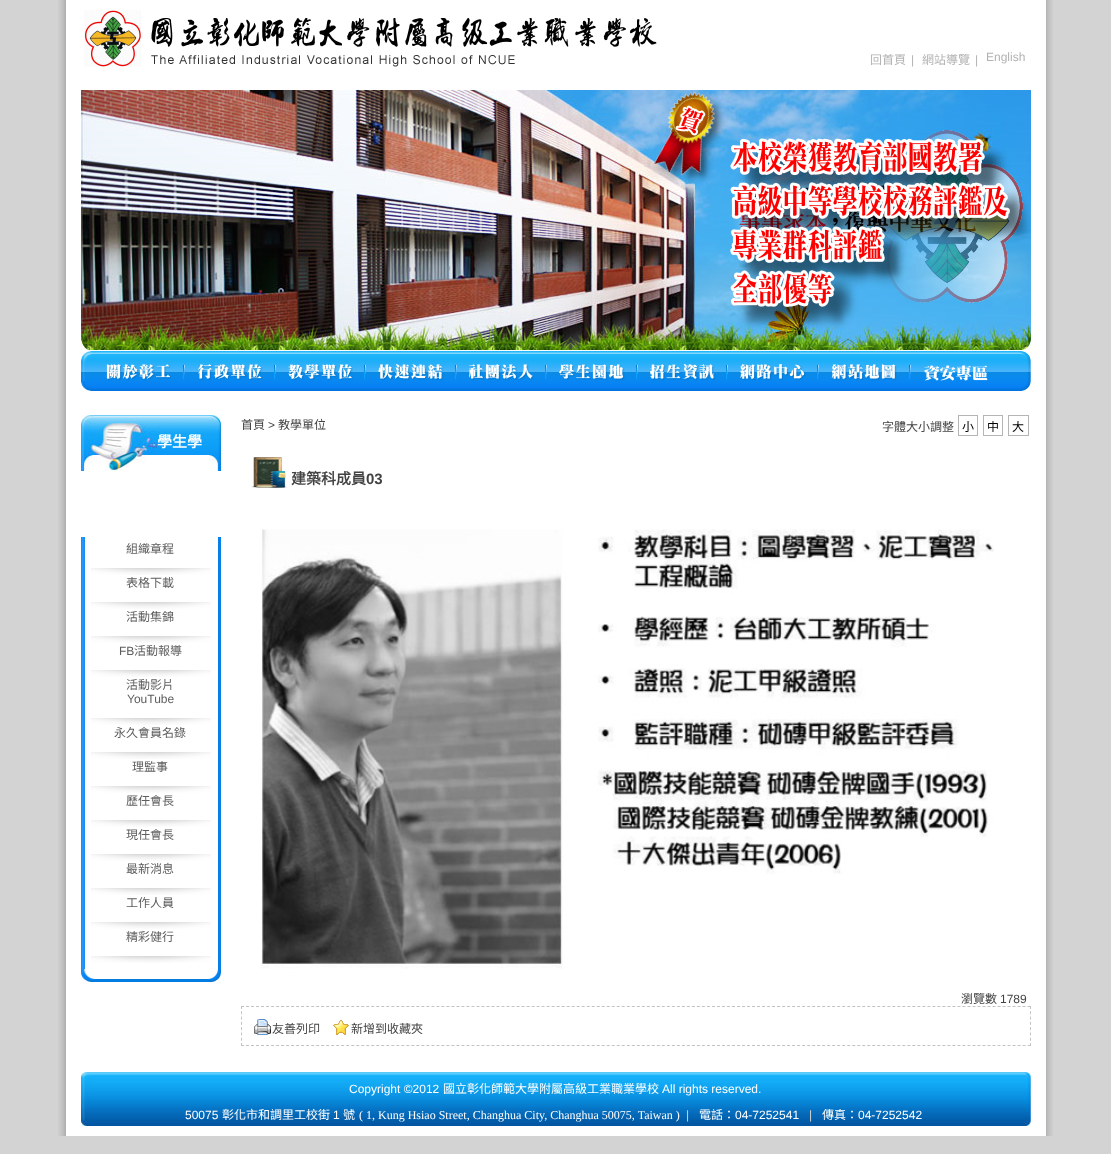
<svg xmlns="http://www.w3.org/2000/svg" width="1111" height="1154">
<rect width="100%" height="100%" fill="#d4d3d4"/>
<image x="58" y="0" width="8" height="1136" href="media/1.png"/>
<image x="1046" y="0" width="7" height="1136" href="media/2.png"/>
<rect x="66" width="980" height="1136" fill="#fff"/>
<image x="84" y="10" width="573" height="57" href="media/3.png"/>
<text x="870" y="64" style="font-family:Noto Sans CJK TC;font-size:12px;fill:#b2b2b2">回首頁</text>
<text x="911" y="64" style="font-family:Liberation Sans;font-size:12px;fill:#b2b2b2">|</text>
<text x="922" y="64" style="font-family:Noto Sans CJK TC;font-size:12px;fill:#b2b2b2">網站導覽</text>
<text x="975" y="64" style="font-family:Liberation Sans;font-size:12px;fill:#b2b2b2">|</text>
<text x="986" y="61" style="font-family:Liberation Sans;font-size:12px;fill:#b2b2b2">English</text>
<image x="81" y="90" width="950" height="260" href="media/4.png"/>
<image x="81" y="351" width="13" height="40" href="media/5.png"/>
<image x="1020" y="351" width="11" height="40" href="media/6.png"/>
<image x="94" y="351" width="926" height="40" href="media/7.png"/>
<image x="183" y="365" width="2" height="14" href="media/8.png"/>
<image x="106" y="364" width="65" height="17" href="media/9.png"/>
<image x="274" y="365" width="2" height="14" href="media/10.png"/>
<image x="198" y="364" width="65" height="17" href="media/11.png"/>
<image x="364" y="365" width="2" height="14" href="media/10.png"/>
<image x="288" y="364" width="65" height="17" href="media/12.png"/>
<image x="455" y="365" width="2" height="14" href="media/13.png"/>
<image x="378" y="364" width="66" height="17" href="media/14.png"/>
<image x="545" y="365" width="2" height="14" href="media/13.png"/>
<image x="469" y="364" width="65" height="17" href="media/15.png"/>
<image x="636" y="365" width="2" height="14" href="media/16.png"/>
<image x="559" y="364" width="66" height="17" href="media/17.png"/>
<image x="726" y="365" width="2" height="14" href="media/16.png"/>
<image x="650" y="364" width="66" height="17" href="media/18.png"/>
<image x="817" y="365" width="2" height="14" href="media/10.png"/>
<image x="740" y="364" width="66" height="17" href="media/19.png"/>
<image x="909" y="365" width="2" height="14" href="media/20.png"/>
<image x="831" y="364" width="66" height="17" href="media/21.png"/>
<image x="924" y="365" width="64" height="16" href="media/22.png"/>
<image x="157" y="415" width="52" height="40" href="media/23.png"/>
<image x="209" y="415" width="12" height="56" href="media/24.png"/>
<image x="81" y="415" width="76" height="56" href="media/25.png"/>
<text x="157" y="447" style="font-family:Noto Sans CJK TC;font-size:15px;font-weight:bold;fill:#fff">學生學</text>
<image x="81" y="537" width="4" height="432" href="media/26.png"/>
<rect x="218" y="537" width="3" height="432" fill="#067fe7"/>
<image x="91" y="568" width="120" height="7" href="media/27.png"/>
<text x="126" y="553" style="font-family:Noto Sans CJK TC;font-size:12px;fill:#5d5d5d">組織章程</text>
<image x="91" y="602" width="120" height="7" href="media/27.png"/>
<text x="126" y="587" style="font-family:Noto Sans CJK TC;font-size:12px;fill:#5d5d5d">表格下載</text>
<image x="91" y="636" width="120" height="7" href="media/27.png"/>
<text x="126" y="621" style="font-family:Noto Sans CJK TC;font-size:12px;fill:#5d5d5d">活動集錦</text>
<image x="91" y="670" width="120" height="7" href="media/27.png"/>
<text x="119" y="655" style="font-family:Liberation Sans;font-size:12px;fill:#5d5d5d">FB</text>
<text x="134" y="655" style="font-family:Noto Sans CJK TC;font-size:12px;fill:#5d5d5d">活動報導</text>
<image x="91" y="718" width="120" height="7" href="media/27.png"/>
<text x="126" y="689" style="font-family:Noto Sans CJK TC;font-size:12px;fill:#5d5d5d">活動影片</text>
<text x="127" y="703" style="font-family:Liberation Sans;font-size:12px;fill:#5d5d5d">YouTube</text>
<image x="91" y="752" width="120" height="7" href="media/27.png"/>
<text x="114" y="737" style="font-family:Noto Sans CJK TC;font-size:12px;fill:#5d5d5d">永久會員名錄</text>
<image x="91" y="786" width="120" height="7" href="media/27.png"/>
<text x="132" y="771" style="font-family:Noto Sans CJK TC;font-size:12px;fill:#5d5d5d">理監事</text>
<image x="91" y="820" width="120" height="7" href="media/27.png"/>
<text x="126" y="805" style="font-family:Noto Sans CJK TC;font-size:12px;fill:#5d5d5d">歷任會長</text>
<image x="91" y="854" width="120" height="7" href="media/27.png"/>
<text x="126" y="839" style="font-family:Noto Sans CJK TC;font-size:12px;fill:#5d5d5d">現任會長</text>
<image x="91" y="888" width="120" height="7" href="media/27.png"/>
<text x="126" y="873" style="font-family:Noto Sans CJK TC;font-size:12px;fill:#5d5d5d">最新消息</text>
<image x="91" y="922" width="120" height="7" href="media/27.png"/>
<text x="126" y="907" style="font-family:Noto Sans CJK TC;font-size:12px;fill:#5d5d5d">工作人員</text>
<image x="91" y="956" width="120" height="7" href="media/27.png"/>
<text x="126" y="941" style="font-family:Noto Sans CJK TC;font-size:12px;fill:#5d5d5d">精彩健行</text>
<rect x="94" y="979" width="114" height="3" fill="#057ce1"/>
<image x="208" y="969" width="13" height="13" href="media/28.png"/>
<image x="81" y="969" width="13" height="13" href="media/29.png"/>
<text x="241" y="429" style="font-family:Noto Sans CJK TC;font-size:12px;fill:#434343">首頁</text>
<text x="268" y="429" style="font-family:Liberation Sans;font-size:12px;fill:#434343">&gt;</text>
<text x="278" y="429" style="font-family:Noto Sans CJK TC;font-size:12px;fill:#434343">教學單位</text>
<text x="882" y="431" style="font-family:Noto Sans CJK TC;font-size:12px;fill:#434343">字體大小調整</text>
<rect x="958.5" y="415.5" width="19" height="20" fill="none" stroke="#b5b5b5"/>
<text x="962" y="431" style="font-family:Noto Sans CJK TC;font-size:12px;fill:#000">小</text>
<rect x="983.5" y="415.5" width="19" height="20" fill="none" stroke="#b5b5b5"/>
<text x="987" y="431" style="font-family:Noto Sans CJK TC;font-size:12px;fill:#000">中</text>
<rect x="1008.5" y="415.5" width="20" height="20" fill="none" stroke="#b5b5b5"/>
<text x="1012" y="431" style="font-family:Noto Sans CJK TC;font-size:12px;fill:#000">大</text>
<image x="251" y="457" width="36" height="31" href="media/30.png"/>
<text x="291" y="484" style="font-family:Noto Sans CJK TC;font-size:15px;font-weight:bold;fill:#434343">建築科成員</text>
<text x="366" y="484" style="font-family:Liberation Sans;font-size:15px;font-weight:bold;fill:#434343">03</text>
<image x="261" y="529" width="733" height="440" href="media/31.png"/>
<text x="961" y="1003" style="font-family:Noto Sans CJK TC;font-size:12px;fill:#434343">瀏覽數</text>
<text x="1000" y="1003" style="font-family:Liberation Sans;font-size:12px;fill:#434343">1789</text>
<path d="M241 1006.5h790" fill="none" stroke="#c3c3c3" stroke-dasharray="3 2.01"/>
<path d="M1030.5 1006v40" fill="none" stroke="#c3c3c3" stroke-dasharray="3 2.29"/>
<path d="M241 1045.5h790" fill="none" stroke="#c3c3c3" stroke-dasharray="3 2.01"/>
<path d="M241.5 1006v40" fill="none" stroke="#c3c3c3" stroke-dasharray="3 2.29"/>
<image x="254" y="1019" width="17" height="16" href="media/32.png"/>
<text x="272" y="1033" style="font-family:Noto Sans CJK TC;font-size:12px;fill:#434343">友善列印</text>
<image x="333" y="1020" width="16" height="15" href="media/33.png"/>
<text x="351" y="1033" style="font-family:Noto Sans CJK TC;font-size:12px;fill:#434343">新增到收藏夾</text>
<image x="90" y="1072" width="934" height="54" href="media/34.png"/>
<image x="1024" y="1072" width="7" height="54" href="media/35.png"/>
<image x="81" y="1072" width="9" height="54" href="media/36.png"/>
<text x="349" y="1093" style="font-family:Liberation Sans;font-size:12px;fill:#fff">Copyright ©2012</text>
<text x="443" y="1093" style="font-family:Noto Sans CJK TC;font-size:12px;fill:#fff">國立彰化師範大學附屬高級工業職業學校</text>
<text x="662" y="1093" style="font-family:Liberation Sans;font-size:12px;fill:#fff">All rights reserved.</text>
<text x="185" y="1119" style="font-family:Liberation Sans;font-size:12px;fill:#fff">50075</text>
<text x="222" y="1119" style="font-family:Noto Sans CJK TC;font-size:12px;fill:#fff">彰化市和調里工校街</text>
<text x="333" y="1119" style="font-family:Liberation Sans;font-size:12px;fill:#fff">1</text>
<text x="343" y="1119" style="font-family:Noto Sans CJK TC;font-size:12px;fill:#fff">號</text>
<text x="359" y="1119" style="font-family:Liberation Serif;font-size:12px;fill:#fff">( 1, Kung Hsiao Street, Changhua City, Changhua 50075, Taiwan )</text>
<text x="686" y="1119" style="font-family:Liberation Sans;font-size:12px;fill:#d3d3d3">|</text>
<text x="699" y="1119" style="font-family:Noto Sans CJK TC;font-size:12px;fill:#fff">電話：</text>
<text x="735" y="1119" style="font-family:Liberation Sans;font-size:12px;fill:#fff">04-7252541</text>
<text x="809" y="1119" style="font-family:Liberation Sans;font-size:12px;fill:#d3d3d3">|</text>
<text x="822" y="1119" style="font-family:Noto Sans CJK TC;font-size:12px;fill:#fff">傳真：</text>
<text x="858" y="1119" style="font-family:Liberation Sans;font-size:12px;fill:#fff">04-7252542</text>
</svg>
